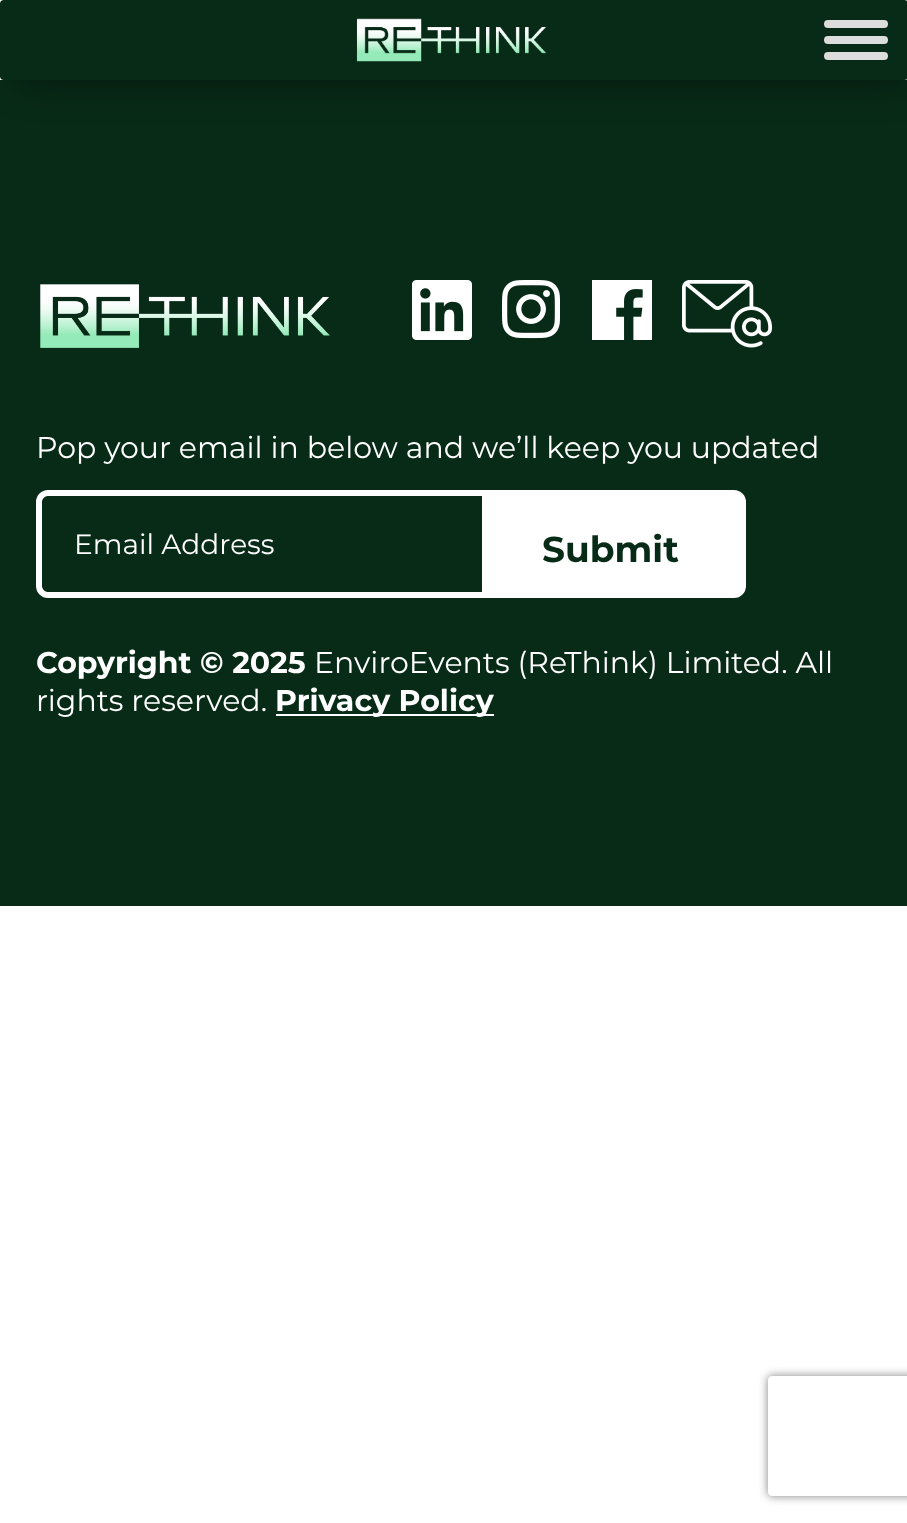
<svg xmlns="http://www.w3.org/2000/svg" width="907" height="1523">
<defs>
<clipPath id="clip1"><path d="M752 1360h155v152h-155zm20 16h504c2 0 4 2 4 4v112c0 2-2 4-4 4h-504c-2 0-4-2-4-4v-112c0-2 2-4 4-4z" clip-rule="evenodd"/></clipPath>
</defs>
<rect width="100%" height="100%" fill="#fff"/>
<rect y="80" width="907" height="826" fill="#082b17"/>
<rect x="20" y="20" width="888" height="60" fill="#00000080" filter="blur(19px)"/>
<rect width="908" height="80" rx="4" fill="#082b17"/>
<image x="356" y="18" width="190" height="44" href="media/1.png"/>
<rect x="824" y="20" width="64" height="8" rx="4" fill="#ddd"/>
<rect x="824" y="36" width="64" height="8" rx="4" fill="#ddd"/>
<rect x="824" y="52" width="64" height="8" rx="4" fill="#ddd"/>
<image x="40" y="284" width="290" height="64" href="media/2.png"/>
<image x="412" y="280" width="60" height="60" href="media/3.png"/>
<image x="502" y="280" width="58" height="59" href="media/4.png"/>
<image x="592" y="280" width="60" height="60" href="media/5.png"/>
<image x="682" y="280" width="90" height="68" href="media/6.png"/>
<text x="36" y="458" style="font-family:Montserrat;font-size:30px;fill:#fff">Pop your email in below and we’ll keep you updated</text>
<rect x="39" y="493" width="704" height="102" rx="9" fill="none" stroke="#fff" stroke-width="6"/>
<rect x="43" y="497" width="438" height="94" rx="7" fill="none" stroke="#082b17" stroke-width="2"/>
<text x="74" y="554" style="font-family:Montserrat;font-size:28px;fill:#fff">Email Address</text>
<rect x="482" y="496" width="258" height="96" fill="#fff"/>
<text x="542" y="562" style="font-family:Montserrat;font-size:36px;font-weight:bold;fill:#082b17">Submit</text>
<text x="36" y="673" style="font-family:Montserrat;font-size:30px;font-weight:bold;fill:#fff">Copyright © 2025</text>
<text x="314" y="673" style="font-family:Montserrat;font-size:30px;fill:#fff">EnviroEvents (ReThink) Limited. All</text>
<text x="36" y="711" style="font-family:Montserrat;font-size:30px;fill:#fff">rights reserved.</text>
<rect x="276" y="714" width="218" height="2" fill="#fff"/>
<text x="275" y="711" style="font-family:Montserrat;font-size:30px;font-weight:bold;fill:#fff">Privacy Policy</text>
<g clip-path="url(#clip1)">
<rect x="768" y="1376" width="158" height="120" rx="4" fill="#808080" filter="blur(5px)"/>
</g>
</svg>
